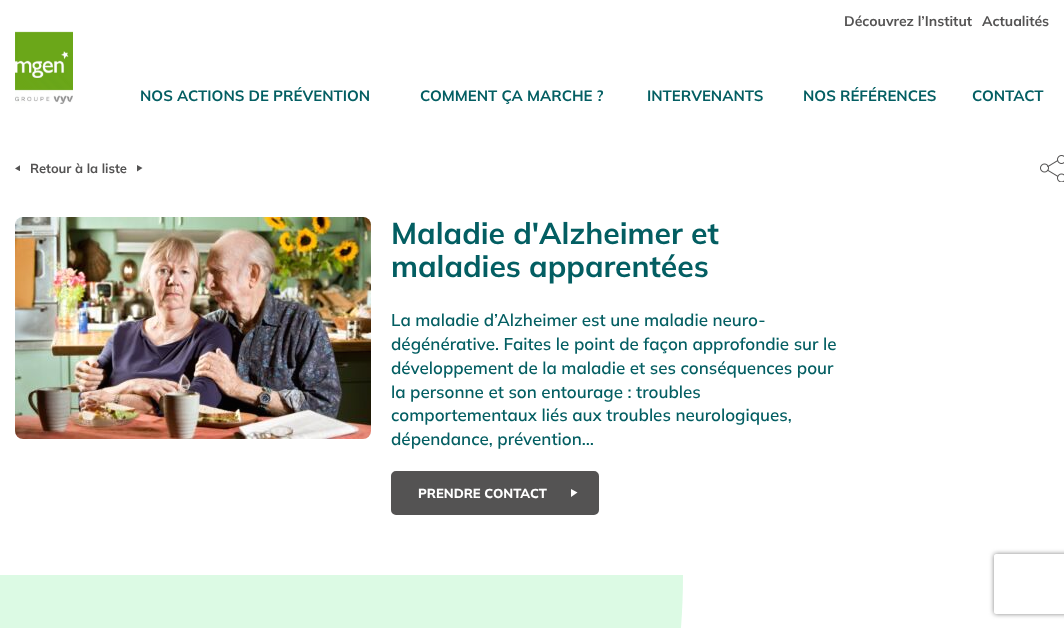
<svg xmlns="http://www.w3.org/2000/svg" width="1064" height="628">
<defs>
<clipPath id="clip1"><rect x="15" y="165" width="5" height="6"/></clipPath>
<clipPath id="clip2"><path d="M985 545h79v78h-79zm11 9h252c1 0 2 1 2 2v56c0 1-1 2-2 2h-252c-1 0-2-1-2-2v-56c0-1 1-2 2-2z" clip-rule="evenodd"/></clipPath>
</defs>
<rect width="100%" height="100%" fill="#fff"/>
<text x="844" y="26" style="font-family:Mulish;font-size:14px;font-weight:bold;fill:#545353">Découvrez l’Institut</text>
<text x="982" y="26" style="font-family:Mulish;font-size:14px;font-weight:bold;fill:#545353">Actualités</text>
<image x="15" y="31" width="58" height="73" href="media/1.png"/>
<text x="140" y="101" style="font-family:Mulish;font-size:15px;font-weight:bold;fill:#035e62">NOS ACTIONS DE PRÉVENTION</text>
<text x="420" y="101" style="font-family:Mulish;font-size:15px;font-weight:bold;fill:#035e62">COMMENT ÇA MARCHE ?</text>
<text x="647" y="101" style="font-family:Mulish;font-size:15px;font-weight:bold;fill:#035e62">INTERVENANTS</text>
<text x="803" y="101" style="font-family:Mulish;font-size:15px;font-weight:bold;fill:#035e62">NOS RÉFÉRENCES</text>
<text x="972" y="101" style="font-family:Mulish;font-size:15px;font-weight:bold;fill:#035e62">CONTACT</text>
<g clip-path="url(#clip1)">
<path d="M20.5 171.5l-5.5-3l5.5-3.5z" fill="#545353"/>
</g>
<text x="30" y="173" style="font-family:Mulish;font-size:13px;font-weight:bold;fill:#545353">Retour à la liste</text>
<path d="M137 165l5.5 3l-5.5 3.5z" fill="#545353"/>
<image x="1040" y="155" width="24" height="27" href="media/2.png"/>
<image x="15" y="217" width="356" height="222" href="media/3.png"/>
<text x="391" y="244" style="font-family:Mulish;font-size:30px;font-weight:bold;fill:#035e62">Maladie d'Alzheimer et</text>
<text x="391" y="277" style="font-family:Mulish;font-size:30px;font-weight:bold;fill:#035e62">maladies apparentées</text>
<text x="391" y="326" style="font-family:Mulish;font-size:17px;font-weight:600;fill:#035e62">La maladie d’Alzheimer est une maladie neuro-</text>
<text x="391" y="350" style="font-family:Mulish;font-size:17px;font-weight:600;fill:#035e62">dégénérative. Faites le point de façon approfondie sur le</text>
<text x="391" y="374" style="font-family:Mulish;font-size:17px;font-weight:600;fill:#035e62">développement de la maladie et ses conséquences pour</text>
<text x="391" y="398" style="font-family:Mulish;font-size:17px;font-weight:600;fill:#035e62">la personne et son entourage : troubles</text>
<text x="391" y="421" style="font-family:Mulish;font-size:17px;font-weight:600;fill:#035e62">comportementaux liés aux troubles neurologiques,</text>
<text x="391" y="445" style="font-family:Mulish;font-size:17px;font-weight:600;fill:#035e62">dépendance, prévention…</text>
<rect x="392" y="472" width="206" height="42" rx="4" fill="#545353" stroke="#545353" stroke-width="2"/>
<text x="418" y="498" style="font-family:Mulish;font-size:13px;font-weight:800;fill:#fff">PRENDRE CONTACT</text>
<path d="M571 489l6.5 3.5l-6.5 4.5z" fill="#fff"/>
<path d="M0 575h683c0 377-306 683-683 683z" fill="#dcfae4"/>
<g clip-path="url(#clip2)">
<rect x="994" y="554" width="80" height="60" rx="2" fill="#818181" filter="blur(2.5px)"/>
</g>
</svg>
